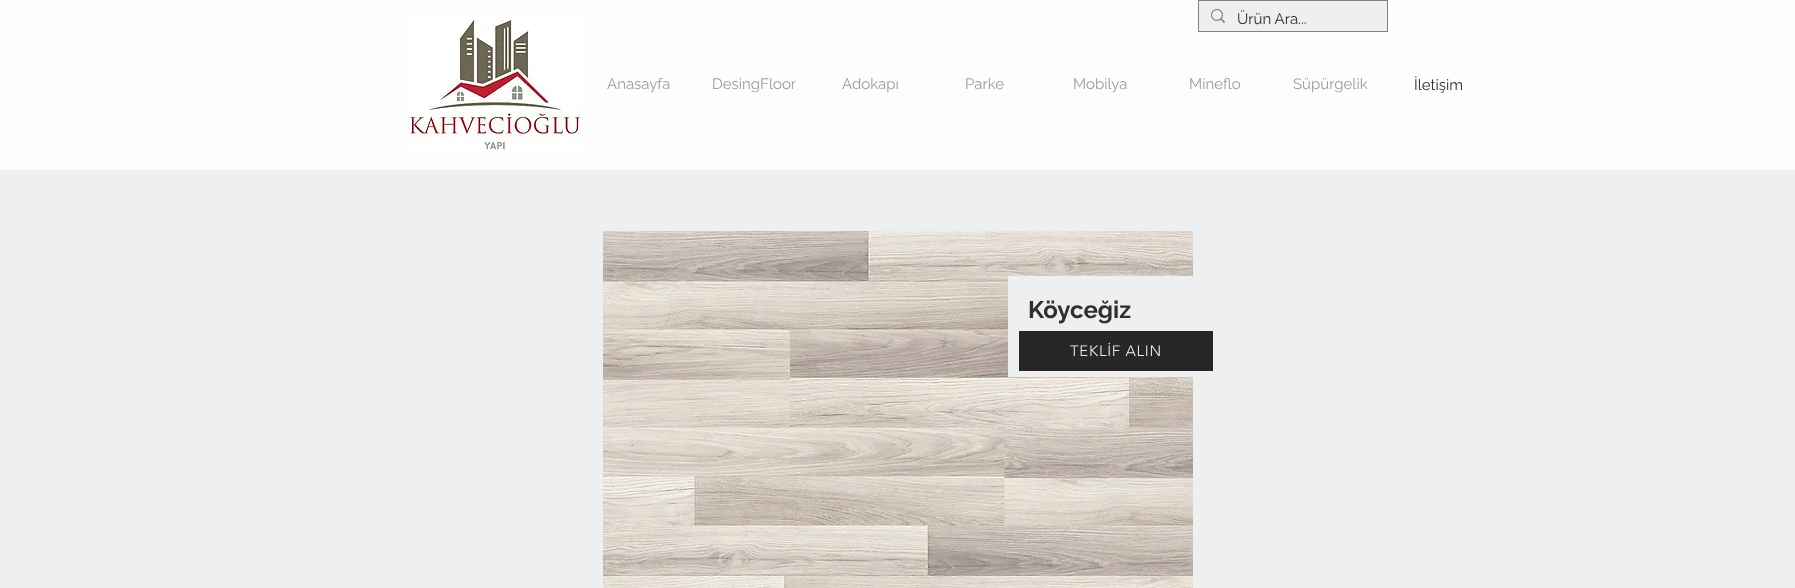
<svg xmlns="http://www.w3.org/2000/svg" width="1795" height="588">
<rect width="100%" height="100%" fill="#edeff0"/>
<rect width="1795" height="170" fill="#fdfdfe"/>
<image x="408" y="16" width="173" height="137" href="media/1.png"/>
<rect x="1198.5" y="0.5" width="189" height="31" fill="none" stroke="#818182"/>
<rect x="1199" y="1" width="188" height="30" fill="#edeff0"/>
<image x="1211" y="9" width="14" height="14" href="media/2.png"/>
<text x="1237" y="24" style="font-family:Raleway;font-size:15px;fill:#2f2f2f">Ürün Ara...</text>
<text x="1414" y="90" style="font-family:Raleway;font-size:15px;fill:#2f2f2f">İletişim</text>
<text x="607" y="89" style="font-family:Raleway;font-size:15px;fill:#9c9c9c">Anasayfa</text>
<text x="712" y="89" style="font-family:Raleway;font-size:15px;fill:#9c9c9c">DesingFloor</text>
<text x="842" y="89" style="font-family:Raleway;font-size:15px;fill:#9c9c9c">Adokapı</text>
<text x="965" y="89" style="font-family:Raleway;font-size:15px;fill:#9c9c9c">Parke</text>
<text x="1073" y="89" style="font-family:Raleway;font-size:15px;fill:#9c9c9c">Mobilya</text>
<text x="1189" y="89" style="font-family:Raleway;font-size:15px;fill:#9c9c9c">Mineflo</text>
<text x="1293" y="89" style="font-family:Raleway;font-size:15px;fill:#9c9c9c">Süpürgelik</text>
<image x="603" y="231" width="590" height="357" href="media/3.png"/>
<rect x="1008" y="276" width="185" height="101" fill="#edeff0"/>
<text x="1028" y="318" style="font-family:Raleway;font-size:24px;font-weight:bold;fill:#2f2f2f">Köyceğiz</text>
<rect x="1019" y="331" width="194" height="40" fill="#282626"/>
<text x="1070" y="356" style="font-family:'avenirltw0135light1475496';font-size:15px;font-weight:300;letter-spacing:0.75px;fill:#edeff0">TEKLİF ALIN</text>
</svg>
